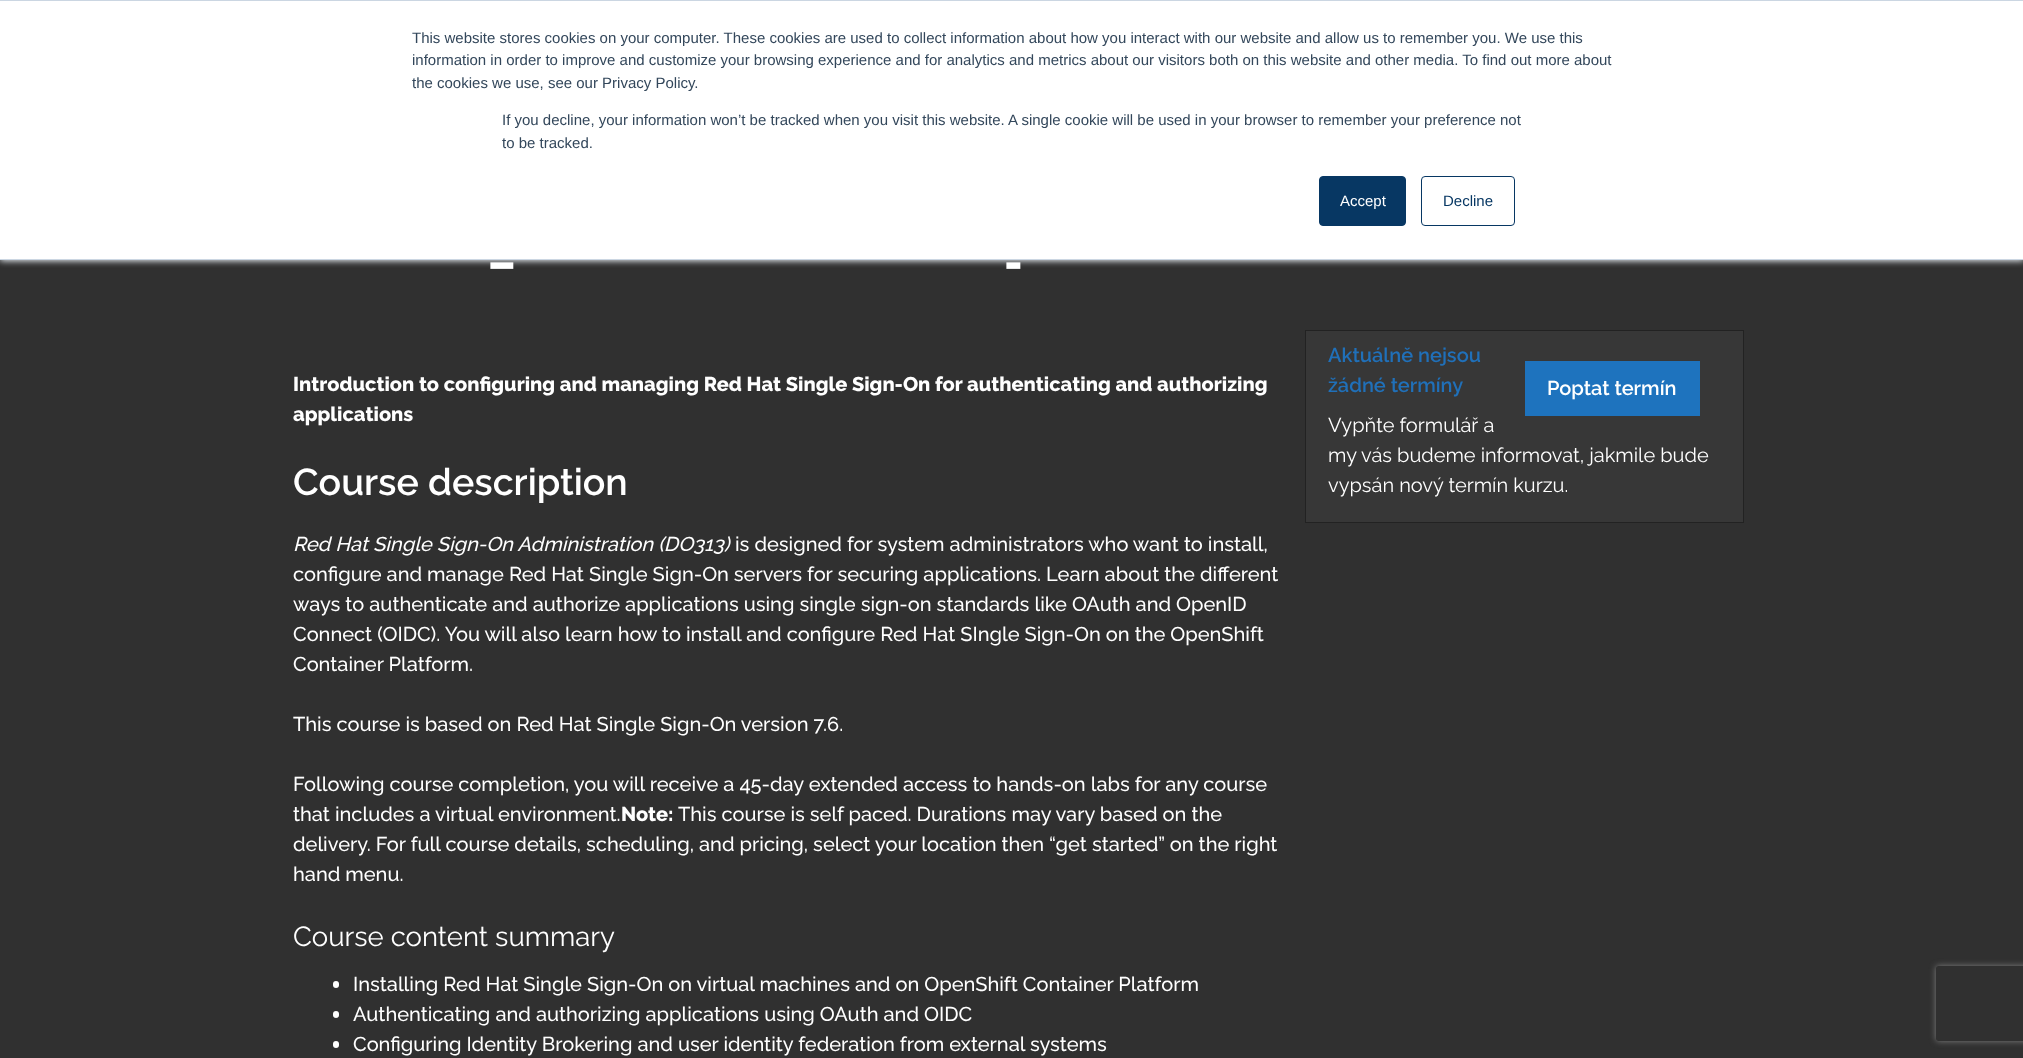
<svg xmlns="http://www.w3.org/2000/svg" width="2023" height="1058">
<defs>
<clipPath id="clip1"><path d="M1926 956h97v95h-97zm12.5 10h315c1.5 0 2.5 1 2.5 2.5v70c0 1.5-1 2.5-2.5 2.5h-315c-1.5 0-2.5-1-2.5-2.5v-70c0-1.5 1-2.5 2.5-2.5z" clip-rule="evenodd"/></clipPath>
</defs>
<rect width="100%" height="100%" fill="#303030"/>
<rect y="1" width="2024" height="260" fill="#eaf0f6" filter="blur(3px)"/>
<rect y="1" width="2023" height="258" fill="#fff"/>
<rect width="2023" height="1" fill="#cbd6e2"/>
<rect y="259" width="2023" height="1" fill="#cbd6e2"/>
<text x="412" y="43" style="font-family:Liberation Sans;font-size:15px;fill:#33475b">This website stores cookies on your computer. These cookies are used to collect information about how you interact with our website and allow us to remember you. We use this</text>
<text x="412" y="65" style="font-family:Liberation Sans;font-size:15px;fill:#33475b">information in order to improve and customize your browsing experience and for analytics and metrics about our visitors both on this website and other media. To find out more about</text>
<text x="412" y="88" style="font-family:Liberation Sans;font-size:15px;fill:#33475b">the cookies we use, see our Privacy Policy.</text>
<text x="502" y="125" style="font-family:Liberation Sans;font-size:15px;fill:#33475b">If you decline, your information won’t be tracked when you visit this website. A single cookie will be used in your browser to remember your preference not</text>
<text x="502" y="148" style="font-family:Liberation Sans;font-size:15px;fill:#33475b">to be tracked.</text>
<rect x="1319.5" y="176.5" width="86" height="49" rx="3.5" fill="#073763" stroke="#073763"/>
<text x="1340" y="206" style="font-family:Liberation Sans;font-size:15px;fill:#fff">Accept</text>
<rect x="1421.5" y="176.5" width="93" height="49" rx="3.5" fill="none" stroke="#073763"/>
<text x="1443" y="206" style="font-family:Liberation Sans;font-size:15px;fill:#073763">Decline</text>
<text x="488" y="278" style="font-family:Raleway;font-size:45px;font-weight:800;fill:#fff">–</text>
<text x="1004" y="278" style="font-family:Raleway;font-size:45px;font-weight:800;fill:#fff">-</text>
<text x="293" y="391" style="font-family:Raleway;font-size:20px;font-weight:800;fill:#fff">Introduction to configuring and managing Red Hat Single Sign-On for authenticating and authorizing</text>
<text x="293" y="421" style="font-family:Raleway;font-size:20px;font-weight:800;fill:#fff">applications</text>
<text x="293" y="495" style="font-family:Raleway;font-size:37.5px;font-weight:600;fill:#fff">Course description</text>
<text x="293" y="551" style="font-family:Raleway;font-size:20px;font-weight:500;font-style:italic;fill:#fff">Red Hat Single Sign-On Administration (DO313)</text>
<text x="735" y="551" style="font-family:Raleway;font-size:20px;font-weight:500;fill:#fff">is designed for system administrators who want to install,</text>
<text x="293" y="581" style="font-family:Raleway;font-size:20px;font-weight:500;fill:#fff">configure and manage Red Hat Single Sign-On servers for securing applications. Learn about the different</text>
<text x="293" y="611" style="font-family:Raleway;font-size:20px;font-weight:500;fill:#fff">ways to authenticate and authorize applications using single sign-on standards like OAuth and OpenID</text>
<text x="293" y="641" style="font-family:Raleway;font-size:20px;font-weight:500;fill:#fff">Connect (OIDC). You will also learn how to install and configure Red Hat SIngle Sign-On on the OpenShift</text>
<text x="293" y="671" style="font-family:Raleway;font-size:20px;font-weight:500;fill:#fff">Container Platform.</text>
<text x="293" y="731" style="font-family:Raleway;font-size:20px;font-weight:500;fill:#fff">This course is based on Red Hat Single Sign-On version 7.6.</text>
<text x="293" y="791" style="font-family:Raleway;font-size:20px;font-weight:500;fill:#fff">Following course completion, you will receive a 45-day extended access to hands-on labs for any course</text>
<text x="293" y="821" style="font-family:Raleway;font-size:20px;font-weight:500;fill:#fff">that includes a virtual environment.</text>
<text x="621" y="821" style="font-family:Raleway;font-size:20px;font-weight:800;fill:#fff">Note:</text>
<text x="678" y="821" style="font-family:Raleway;font-size:20px;font-weight:500;fill:#fff">This course is self paced. Durations may vary based on the</text>
<text x="293" y="851" style="font-family:Raleway;font-size:20px;font-weight:500;fill:#fff">delivery. For full course details, scheduling, and pricing, select your location then “get started” on the right</text>
<text x="293" y="881" style="font-family:Raleway;font-size:20px;font-weight:500;fill:#fff">hand menu.</text>
<text x="293" y="946" style="font-family:Raleway;font-size:27.5px;fill:#fff">Course content summary</text>
<rect x="333" y="981" width="6" height="7" rx="3" fill="#fff"/>
<text x="353" y="991" style="font-family:Raleway;font-size:20px;font-weight:500;fill:#fff">Installing Red Hat Single Sign-On on virtual machines and on OpenShift Container Platform</text>
<rect x="333" y="1011" width="6" height="7" rx="3" fill="#fff"/>
<text x="353" y="1021" style="font-family:Raleway;font-size:20px;font-weight:500;fill:#fff">Authenticating and authorizing applications using OAuth and OIDC</text>
<rect x="333" y="1041" width="6" height="7" rx="3" fill="#fff"/>
<text x="353" y="1051" style="font-family:Raleway;font-size:20px;font-weight:500;fill:#fff">Configuring Identity Brokering and user identity federation from external systems</text>
<rect x="1305.5" y="330.5" width="438" height="192" fill="#373737" stroke="#222"/>
<text x="1328" y="362" style="font-family:Raleway;font-size:20px;font-weight:600;fill:#2070b9">Aktuálně nejsou</text>
<text x="1328" y="392" style="font-family:Raleway;font-size:20px;font-weight:600;fill:#2070b9">žádné termíny</text>
<text x="1328" y="432" style="font-family:Raleway;font-size:20px;fill:#fff">Vypňte formulář a</text>
<text x="1328" y="462" style="font-family:Raleway;font-size:20px;fill:#fff">my vás budeme informovat, jakmile bude</text>
<text x="1328" y="492" style="font-family:Raleway;font-size:20px;fill:#fff">vypsán nový termín kurzu.</text>
<rect x="1525" y="361" width="175" height="55" fill="#1e73be"/>
<text x="1547" y="395" style="font-family:Raleway;font-size:20px;font-weight:600;fill:#fff">Poptat termín</text>
<g clip-path="url(#clip1)">
<rect x="1936" y="966" width="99" height="75" rx="2.5" fill="#808080" filter="blur(3px)"/>
</g>
</svg>
